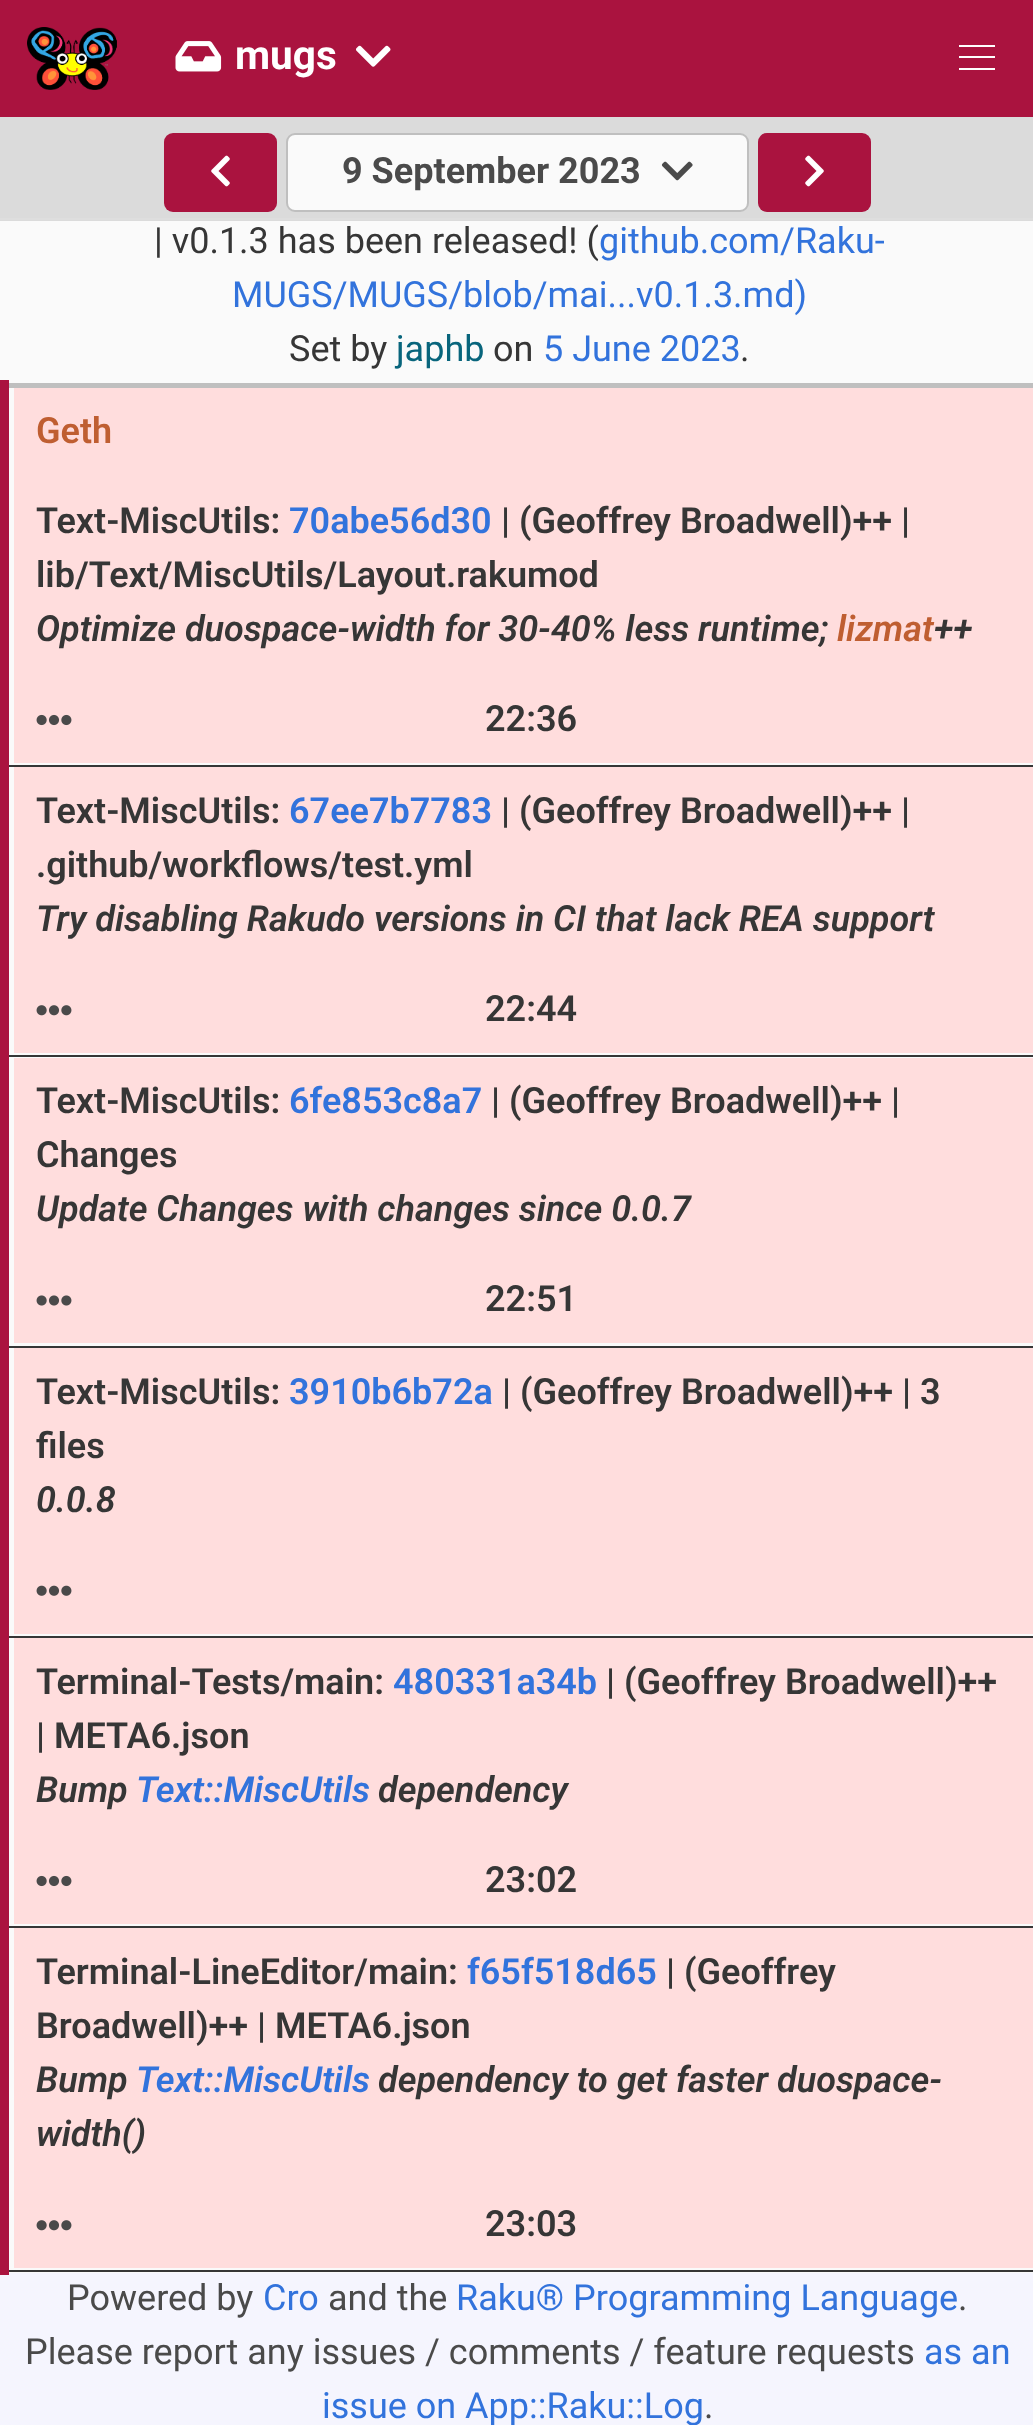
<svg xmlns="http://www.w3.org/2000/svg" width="1033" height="2425">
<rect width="100%" height="100%" fill="#f5f5fe"/>
<rect width="1033" height="117" fill="#aa133f"/>
<image x="27" y="27" width="90" height="63" href="media/1.png"/>
<image x="175" y="41" width="47" height="31" href="media/2.png"/>
<text x="235" y="69" style="font-family:Roboto;font-size:40.5px;font-weight:bold;fill:#fff">mugs</text>
<image x="356" y="45" width="35" height="22" href="media/3.png"/>
<rect x="959" y="45" width="36" height="2" fill="#fff"/>
<rect x="959" y="56" width="36" height="2" fill="#fff"/>
<rect x="959" y="68" width="36" height="2" fill="#fff"/>
<rect y="117" width="1033" height="104" fill="#dbdbdb"/>
<rect y="218" width="1033" height="2" fill="#dedede"/>
<rect x="164" y="133" width="113" height="79" rx="9" fill="#aa133f"/>
<image x="211" y="155" width="19" height="32" href="media/4.png"/>
<rect x="287" y="134" width="461" height="77" rx="8" fill="#fafafa" stroke="#bfbfbf" stroke-width="2"/>
<text x="342" y="183" style="font-family:Roboto;font-size:36px;font-weight:bold;fill:#4a4a4a">9 September 2023</text>
<image x="661" y="161" width="32" height="20" href="media/5.png"/>
<rect x="758" y="133" width="113" height="79" rx="9" fill="#aa133f"/>
<image x="805" y="155" width="19" height="32" href="media/6.png"/>
<rect y="221" width="1033" height="2052" fill="#fafafa"/>
<rect x="2" y="383" width="1031" height="5" fill="#bfbfbf"/>
<text x="154" y="253" style="font-family:Roboto;font-size:36px;fill:#363636">| v0.1.3 has been released! (</text>
<text x="599" y="253" style="font-family:Roboto;font-size:36px;fill:#3273dc">github.com/Raku-</text>
<text x="232" y="307" style="font-family:Roboto;font-size:36px;fill:#3273dc">MUGS/MUGS/blob/mai...v0.1.3.md)</text>
<text x="289" y="361" style="font-family:Roboto;font-size:36px;fill:#363636">Set by</text>
<text x="396" y="361" style="font-family:Roboto;font-size:36px;fill:#08657c">japhb</text>
<text x="493" y="361" style="font-family:Roboto;font-size:36px;fill:#363636">on</text>
<text x="543" y="361" style="font-family:Roboto;font-size:36px;fill:#3273dc">5 June 2023</text>
<text x="740" y="361" style="font-family:Roboto;font-size:36px;fill:#363636">.</text>
<rect x="14" y="388" width="1019" height="375" fill="#fdd"/>
<text x="36" y="443" style="font-family:Roboto;font-size:36px;font-weight:600;fill:#bf5e31">Geth</text>
<text x="36" y="533" style="font-family:Roboto;font-size:36px;font-weight:600;fill:#363636">Text-MiscUtils:</text>
<text x="289" y="533" style="font-family:Roboto;font-size:36px;font-weight:600;fill:#3273dc">70abe56d30</text>
<text x="501" y="533" style="font-family:Roboto;font-size:36px;font-weight:600;fill:#363636">| (Geoffrey Broadwell)++ |</text>
<text x="36" y="587" style="font-family:Roboto;font-size:36px;font-weight:600;fill:#363636">lib/Text/MiscUtils/Layout.rakumod</text>
<text x="36" y="641" style="font-family:Roboto;font-size:36px;font-weight:600;font-style:italic;fill:#363636">Optimize duospace-width for 30-40% less runtime;</text>
<text x="837" y="641" style="font-family:Roboto;font-size:36px;font-weight:600;font-style:italic;fill:#bf5e31">lizmat</text>
<text x="934" y="641" style="font-family:Roboto;font-size:36px;font-weight:600;font-style:italic;fill:#363636">++</text>
<image x="36" y="714" width="36" height="12" href="media/7.png"/>
<text x="485" y="731" style="font-family:Roboto;font-size:36px;font-weight:600;fill:#363636">22:36</text>
<rect x="14" y="767" width="1019" height="286" fill="#fdd"/>
<rect x="5" y="765" width="1028" height="2" fill="#363636"/>
<text x="36" y="823" style="font-family:Roboto;font-size:36px;font-weight:600;fill:#363636">Text-MiscUtils:</text>
<text x="289" y="823" style="font-family:Roboto;font-size:36px;font-weight:600;fill:#3273dc">67ee7b7783</text>
<text x="501" y="823" style="font-family:Roboto;font-size:36px;font-weight:600;fill:#363636">| (Geoffrey Broadwell)++ |</text>
<text x="36" y="877" style="font-family:Roboto;font-size:36px;font-weight:600;fill:#363636">.github/workflows/test.yml</text>
<text x="36" y="931" style="font-family:Roboto;font-size:36px;font-weight:600;font-style:italic;fill:#363636">Try disabling Rakudo versions in CI that lack REA support</text>
<image x="36" y="1005" width="36" height="11" href="media/8.png"/>
<text x="485" y="1021" style="font-family:Roboto;font-size:36px;font-weight:600;fill:#363636">22:44</text>
<rect x="14" y="1058" width="1019" height="285" fill="#fdd"/>
<rect x="5" y="1055" width="1028" height="2" fill="#363636"/>
<text x="36" y="1113" style="font-family:Roboto;font-size:36px;font-weight:600;fill:#363636">Text-MiscUtils:</text>
<text x="289" y="1113" style="font-family:Roboto;font-size:36px;font-weight:600;fill:#3273dc">6fe853c8a7</text>
<text x="491" y="1113" style="font-family:Roboto;font-size:36px;font-weight:600;fill:#363636">| (Geoffrey Broadwell)++ |</text>
<text x="36" y="1167" style="font-family:Roboto;font-size:36px;font-weight:600;fill:#363636">Changes</text>
<text x="36" y="1221" style="font-family:Roboto;font-size:36px;font-weight:600;font-style:italic;fill:#363636">Update Changes with changes since 0.0.7</text>
<image x="36" y="1295" width="36" height="11" href="media/9.png"/>
<text x="485" y="1311" style="font-family:Roboto;font-size:36px;font-weight:600;fill:#363636">22:51</text>
<rect x="14" y="1348" width="1019" height="286" fill="#fdd"/>
<rect x="5" y="1346" width="1028" height="2" fill="#363636"/>
<text x="36" y="1404" style="font-family:Roboto;font-size:36px;font-weight:600;fill:#363636">Text-MiscUtils:</text>
<text x="289" y="1404" style="font-family:Roboto;font-size:36px;font-weight:600;fill:#3273dc">3910b6b72a</text>
<text x="502" y="1404" style="font-family:Roboto;font-size:36px;font-weight:600;fill:#363636">| (Geoffrey Broadwell)++ | 3</text>
<text x="36" y="1458" style="font-family:Roboto;font-size:36px;font-weight:600;fill:#363636">files</text>
<text x="36" y="1512" style="font-family:Roboto;font-size:36px;font-weight:600;font-style:italic;fill:#363636">0.0.8</text>
<image x="36" y="1585" width="36" height="11" href="media/10.png"/>
<rect x="14" y="1638" width="1019" height="286" fill="#fdd"/>
<rect x="5" y="1636" width="1028" height="2" fill="#363636"/>
<text x="36" y="1694" style="font-family:Roboto;font-size:36px;font-weight:600;fill:#363636">Terminal-Tests/main:</text>
<text x="393" y="1694" style="font-family:Roboto;font-size:36px;font-weight:600;fill:#3273dc">480331a34b</text>
<text x="606" y="1694" style="font-family:Roboto;font-size:36px;font-weight:600;fill:#363636">| (Geoffrey Broadwell)++</text>
<text x="36" y="1748" style="font-family:Roboto;font-size:36px;font-weight:600;fill:#363636">| META6.json</text>
<text x="36" y="1802" style="font-family:Roboto;font-size:36px;font-weight:600;font-style:italic;fill:#363636">Bump</text>
<text x="136" y="1802" style="font-family:Roboto;font-size:36px;font-weight:600;font-style:italic;fill:#3273dc">Text::MiscUtils</text>
<text x="378" y="1802" style="font-family:Roboto;font-size:36px;font-weight:600;font-style:italic;fill:#363636">dependency</text>
<image x="36" y="1875" width="36" height="12" href="media/7.png"/>
<text x="485" y="1892" style="font-family:Roboto;font-size:36px;font-weight:600;fill:#363636">23:02</text>
<rect x="14" y="1928" width="1019" height="340" fill="#fdd"/>
<rect x="5" y="1926" width="1028" height="2" fill="#363636"/>
<rect x="5" y="2270" width="1028" height="2" fill="#363636"/>
<rect y="380" width="9" height="1895" fill="#aa133f"/>
<text x="36" y="1984" style="font-family:Roboto;font-size:36px;font-weight:600;fill:#363636">Terminal-LineEditor/main:</text>
<text x="467" y="1984" style="font-family:Roboto;font-size:36px;font-weight:600;fill:#3273dc">f65f518d65</text>
<text x="666" y="1984" style="font-family:Roboto;font-size:36px;font-weight:600;fill:#363636">| (Geoffrey</text>
<text x="36" y="2038" style="font-family:Roboto;font-size:36px;font-weight:600;fill:#363636">Broadwell)++ | META6.json</text>
<text x="36" y="2092" style="font-family:Roboto;font-size:36px;font-weight:600;font-style:italic;fill:#363636">Bump</text>
<text x="136" y="2092" style="font-family:Roboto;font-size:36px;font-weight:600;font-style:italic;fill:#3273dc">Text::MiscUtils</text>
<text x="378" y="2092" style="font-family:Roboto;font-size:36px;font-weight:600;font-style:italic;fill:#363636">dependency to get faster duospace-</text>
<text x="36" y="2146" style="font-family:Roboto;font-size:36px;font-weight:600;font-style:italic;fill:#363636">width()</text>
<image x="36" y="2220" width="36" height="11" href="media/8.png"/>
<text x="485" y="2236" style="font-family:Roboto;font-size:36px;font-weight:600;fill:#363636">23:03</text>
<text x="67" y="2310" style="font-family:Roboto;font-size:36px;fill:#4a4a4a">Powered by</text>
<text x="263" y="2310" style="font-family:Roboto;font-size:36px;fill:#3273dc">Cro</text>
<text x="328" y="2310" style="font-family:Roboto;font-size:36px;fill:#4a4a4a">and the</text>
<text x="456" y="2310" style="font-family:Roboto;font-size:36px;fill:#3273dc">Raku® Programming Language</text>
<text x="958" y="2310" style="font-family:Roboto;font-size:36px;fill:#4a4a4a">.</text>
<text x="25" y="2364" style="font-family:Roboto;font-size:36px;fill:#4a4a4a">Please report any issues / comments / feature requests</text>
<text x="924" y="2364" style="font-family:Roboto;font-size:36px;fill:#3273dc">as an</text>
<text x="322" y="2418" style="font-family:Roboto;font-size:36px;fill:#3273dc">issue on App::Raku::Log</text>
<text x="704" y="2418" style="font-family:Roboto;font-size:36px;fill:#4a4a4a">.</text>
</svg>
